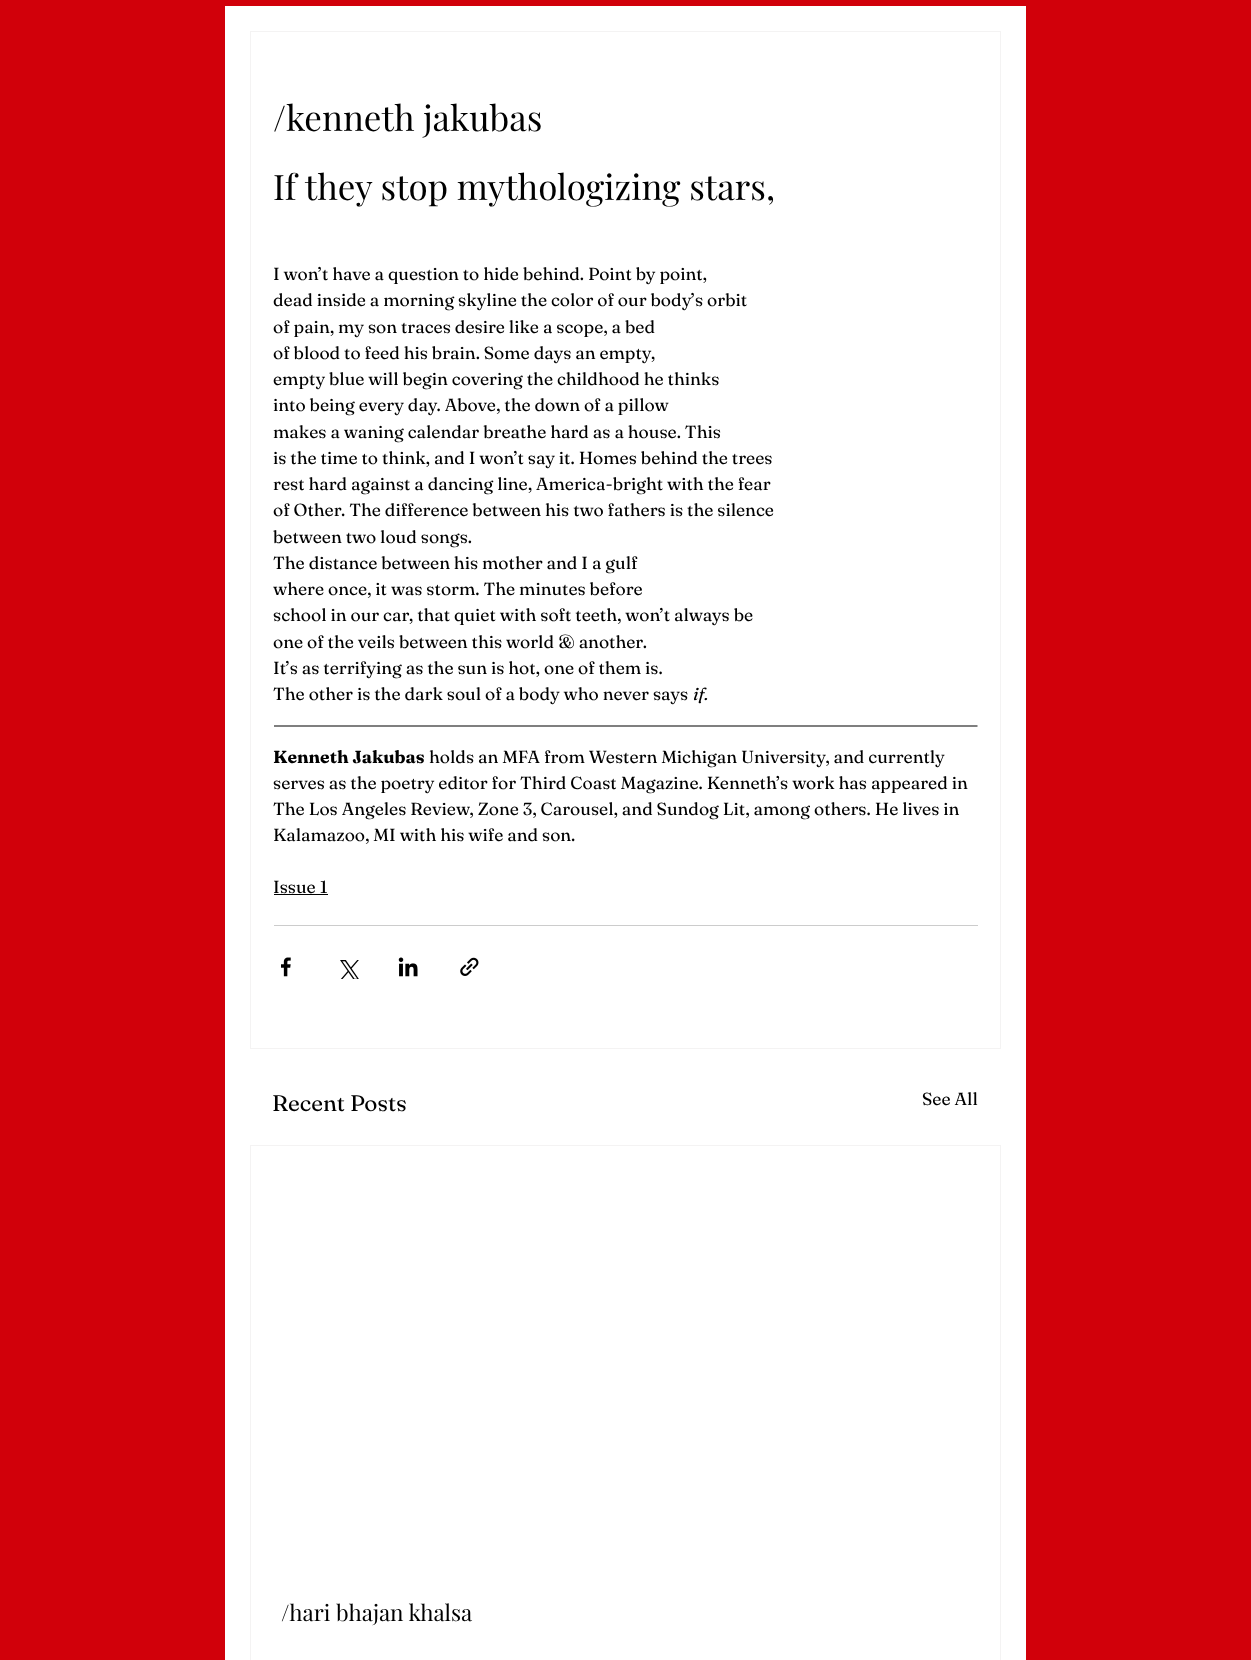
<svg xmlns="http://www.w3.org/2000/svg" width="1251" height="1660">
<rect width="100%" height="100%" fill="#d1000a"/>
<rect x="225" y="6" width="801" height="1654" fill="#fff"/>
<rect x="250.5" y="31.5" width="750" height="1017" fill="none" stroke="#f4f3f3"/>
<text x="273" y="131" style="font-family:Playfair Display;font-size:35px;fill:#000">/kenneth jakubas</text>
<text x="273" y="200" style="font-family:Playfair Display;font-size:35px;fill:#000">If they stop mythologizing stars,</text>
<text x="273" y="280" style="font-family:Fraunces;font-size:17.5px;fill:#000">I won’t have a question to hide behind. Point by point,</text>
<text x="273" y="306" style="font-family:Fraunces;font-size:17.5px;fill:#000">dead inside a morning skyline the color of our body’s orbit</text>
<text x="273" y="333" style="font-family:Fraunces;font-size:17.5px;fill:#000">of pain, my son traces desire like a scope, a bed</text>
<text x="273" y="359" style="font-family:Fraunces;font-size:17.5px;fill:#000">of blood to feed his brain. Some days an empty,</text>
<text x="273" y="385" style="font-family:Fraunces;font-size:17.5px;fill:#000">empty blue will begin covering the childhood he thinks</text>
<text x="273" y="411" style="font-family:Fraunces;font-size:17.5px;fill:#000">into being every day. Above, the down of a pillow</text>
<text x="273" y="438" style="font-family:Fraunces;font-size:17.5px;fill:#000">makes a waning calendar breathe hard as a house. This</text>
<text x="273" y="464" style="font-family:Fraunces;font-size:17.5px;fill:#000">is the time to think, and I won’t say it. Homes behind the trees</text>
<text x="273" y="490" style="font-family:Fraunces;font-size:17.5px;fill:#000">rest hard against a dancing line, America-bright with the fear</text>
<text x="273" y="516" style="font-family:Fraunces;font-size:17.5px;fill:#000">of Other. The difference between his two fathers is the silence</text>
<text x="273" y="543" style="font-family:Fraunces;font-size:17.5px;fill:#000">between two loud songs.</text>
<text x="273" y="569" style="font-family:Fraunces;font-size:17.5px;fill:#000">The distance between his mother and I a gulf</text>
<text x="273" y="595" style="font-family:Fraunces;font-size:17.5px;fill:#000">where once, it was storm. The minutes before</text>
<text x="273" y="621" style="font-family:Fraunces;font-size:17.5px;fill:#000">school in our car, that quiet with soft teeth, won’t always be</text>
<text x="273" y="648" style="font-family:Fraunces;font-size:17.5px;fill:#000">one of the veils between this world &amp; another.</text>
<text x="273" y="674" style="font-family:Fraunces;font-size:17.5px;fill:#000">It’s as terrifying as the sun is hot, one of them is.</text>
<text x="273" y="700" style="font-family:Fraunces;font-size:17.5px;fill:#000">The other is the dark soul of a body who never says</text>
<text x="693" y="700" style="font-family:Fraunces;font-size:17.5px;font-style:italic;fill:#000">if.</text>
<path d="M274 726h703.5" fill="none" stroke="#000" stroke-width="1.2"/>
<text x="273" y="763" style="font-family:Fraunces;font-size:17.5px;font-weight:bold;fill:#000">Kenneth Jakubas</text>
<text x="429" y="763" style="font-family:Fraunces;font-size:17.5px;fill:#000">holds an MFA from Western Michigan University, and currently</text>
<text x="273" y="789" style="font-family:Fraunces;font-size:17.5px;fill:#000">serves as the poetry editor for Third Coast Magazine. Kenneth’s work has appeared in</text>
<text x="273" y="815" style="font-family:Fraunces;font-size:17.5px;fill:#000">The Los Angeles Review, Zone 3, Carousel, and Sundog Lit, among others. He lives in</text>
<text x="273" y="841" style="font-family:Fraunces;font-size:17.5px;fill:#000">Kalamazoo, MI with his wife and son.</text>
<text x="273" y="893" style="font-family:Fraunces;font-size:17.5px;fill:#000">Issue 1</text>
<rect x="274" y="894" width="54" height="1" fill="#000"/>
<rect x="274" y="925" width="704" height="1" fill="#ccc"/>
<image x="281" y="957" width="10" height="20" href="media/1.png"/>
<image x="340" y="960" width="19" height="19" href="media/2.png"/>
<image x="398" y="957" width="20" height="20" href="media/3.png"/>
<image x="460" y="957" width="19" height="19" href="media/4.png"/>
<text x="272" y="1111" style="font-family:Fraunces;font-size:22.5px;fill:#000">Recent Posts</text>
<text x="922" y="1105" style="font-family:Fraunces;font-size:17.5px;fill:#000">See All</text>
<rect x="250.5" y="1145.5" width="750" height="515" fill="none" stroke="#f4f3f3"/>
<text x="281" y="1621" style="font-family:Playfair Display;font-size:22.5px;fill:#000">/hari bhajan khalsa</text>
</svg>
